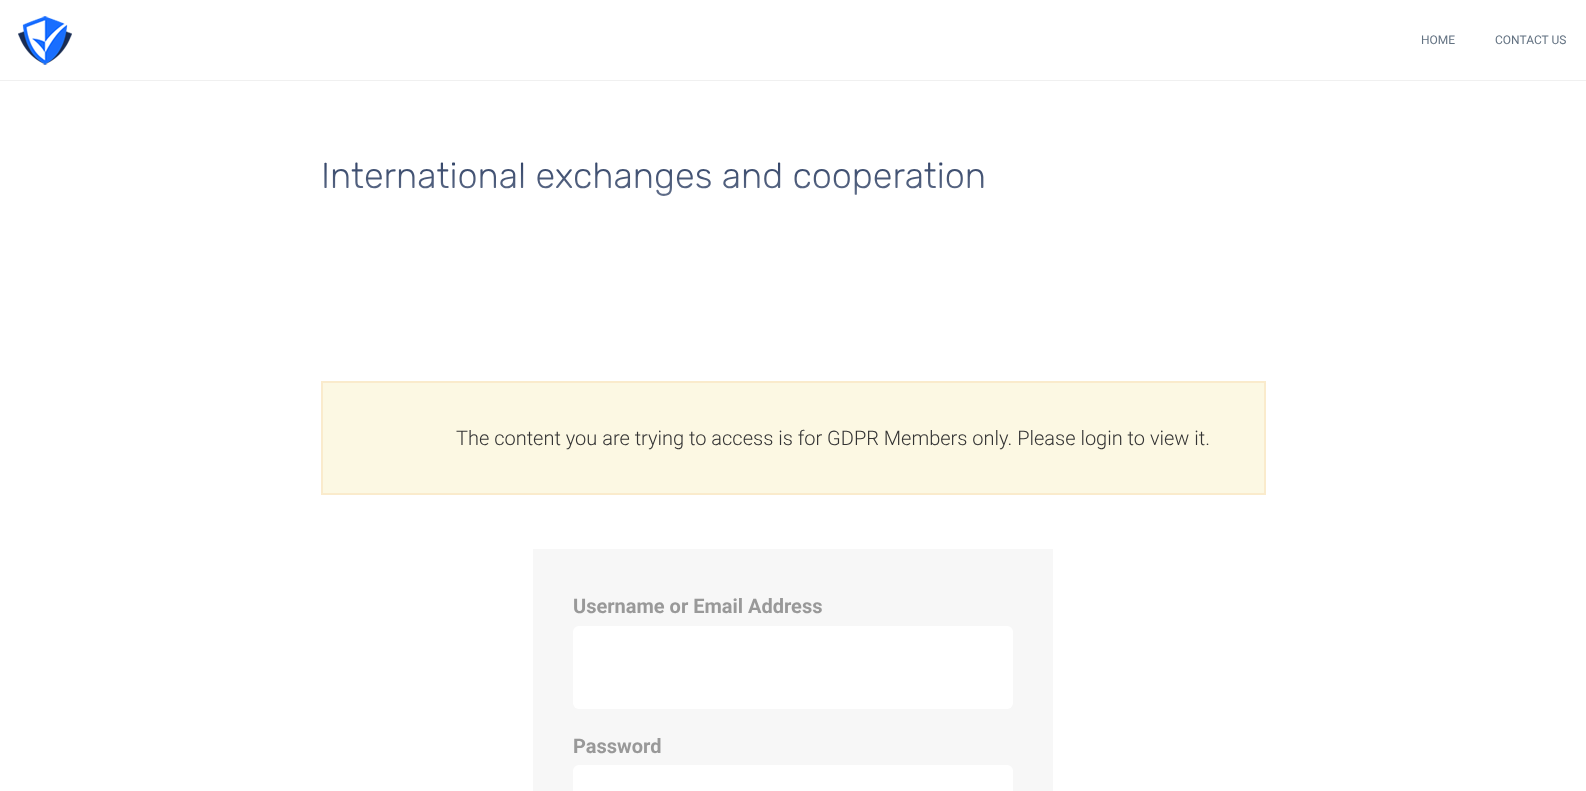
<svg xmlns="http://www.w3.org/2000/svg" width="1586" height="791">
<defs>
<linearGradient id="g1" gradientUnits="userSpaceOnUse" x1="794" y1="321" x2="794" y2="121"><stop offset="0" stop-color="#fff"/><stop offset="1" stop-color="#fff" stop-opacity="0"/></linearGradient>
</defs>
<rect width="100%" height="100%" fill="#fff"/>
<rect y="80" width="1586" height="1" fill="#f0f0f0"/>
<image x="18" y="16" width="54" height="49" href="media/1.png"/>
<text x="1421" y="44" style="font-family:Roboto;font-size:12px;fill:#637282">HOME</text>
<text x="1495" y="44" style="font-family:Roboto;font-size:12px;fill:#637282">CONTACT US</text>
<text x="321" y="188" style="font-family:Rubik;font-size:36px;font-weight:300;fill:#001642">International exchanges and cooperation</text>
<rect x="323" y="162" width="660" height="34" fill="url(#g1)"/>
<rect x="322" y="382" width="943" height="112" fill="#fcf8e3" stroke="#faebcc" stroke-width="2"/>
<text x="456" y="445" style="font-family:Roboto;font-size:20px;font-weight:300;fill:#333">The content you are trying to access is for GDPR Members only. Please login to view it.</text>
<rect x="533" y="549" width="520" height="242" fill="#f7f7f7"/>
<text x="573" y="613" style="font-family:Roboto;font-size:20px;font-weight:bold;fill:#999">Username or Email Address</text>
<rect x="573" y="626" width="440" height="83" rx="6" fill="#fff"/>
<text x="573" y="753" style="font-family:Roboto;font-size:20px;font-weight:bold;fill:#999">Password</text>
<rect x="573" y="765" width="440" height="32" rx="6" fill="#fff"/>
</svg>
